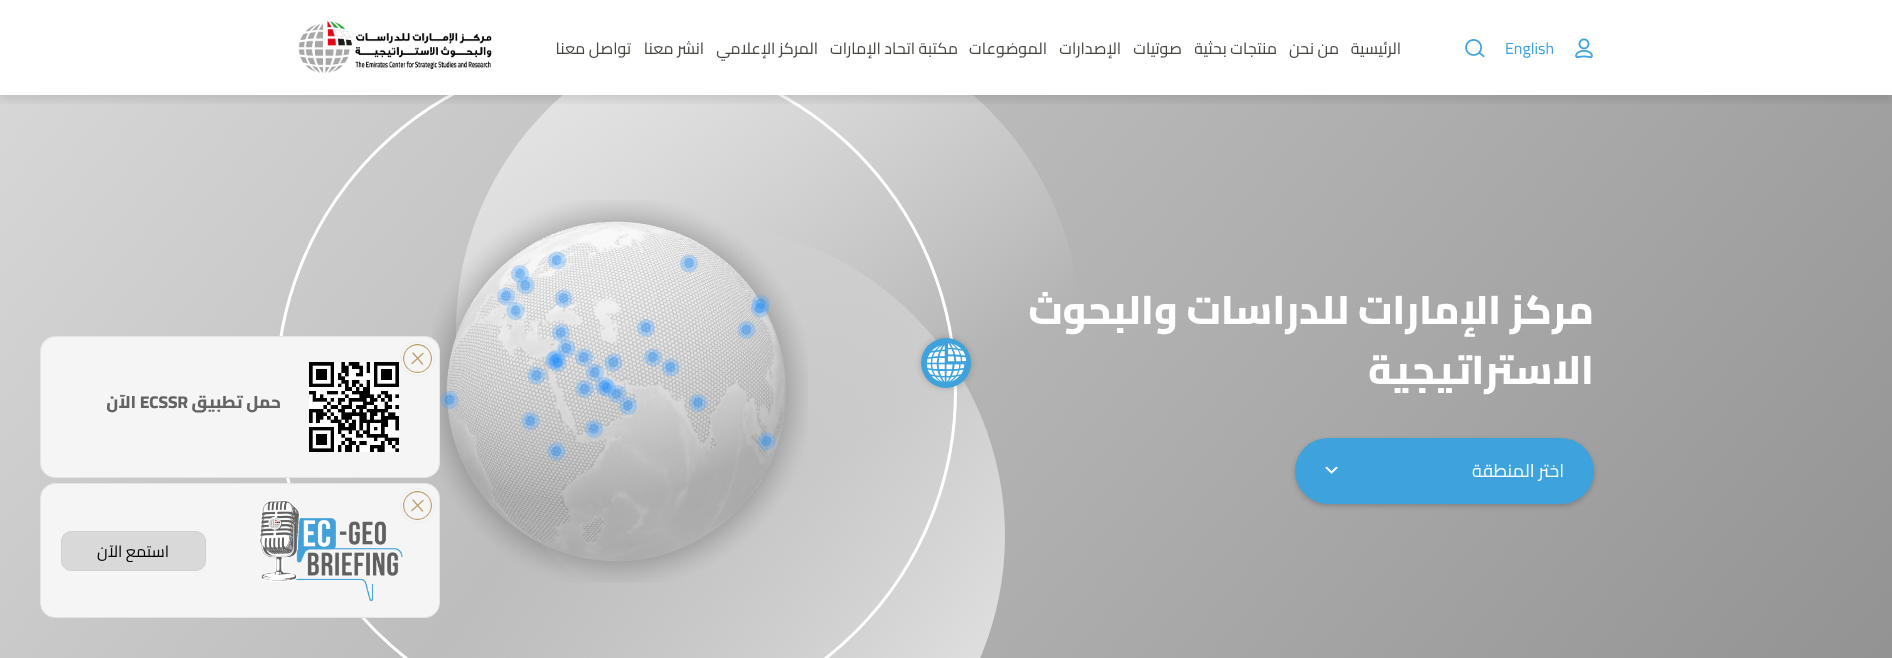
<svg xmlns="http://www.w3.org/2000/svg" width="1892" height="658">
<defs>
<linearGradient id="g1" gradientUnits="userSpaceOnUse" x1="1647" y1="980" x2="245" y2="-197"><stop offset="0" stop-color="#929292"/><stop offset="1" stop-color="#d7d7d7"/></linearGradient>
<clipPath id="clip1"><rect y="95" width="1892" height="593"/></clipPath>
<linearGradient id="g2" gradientUnits="userSpaceOnUse" x1="541" y1="-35" x2="996" y2="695"><stop offset="0.06" stop-color="#e7e7e7"/><stop offset="0.66" stop-color="#e7e7e7" stop-opacity="0"/></linearGradient>
<linearGradient id="g3" gradientUnits="userSpaceOnUse" x1="1045" y1="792" x2="340" y2="280"><stop offset="0.06" stop-color="#e7e7e7"/><stop offset="0.66" stop-color="#e7e7e7" stop-opacity="0"/></linearGradient>
<clipPath id="clip2"><rect x="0" y="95" width="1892" height="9"/></clipPath>
<clipPath id="clip3"><rect x="403" y="344" width="29" height="29" rx="14.5"/></clipPath>
<clipPath id="clip4"><rect x="403" y="491" width="29" height="29" rx="14.5"/></clipPath>
</defs>
<rect width="100%" height="100%" fill="#fff"/>
<rect y="95" width="1892" height="563" fill="url(#g1)"/>
<g clip-path="url(#clip1)">
<circle cx="768" cy="330" r="312" fill="url(#g2)"/>
</g>
<circle cx="693" cy="536" r="312" fill="url(#g3)"/>
<rect x="276.5" y="52.5" width="679" height="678" rx="339" fill="none" stroke="#fff" stroke-width="3"/>
<g clip-path="url(#clip2)">
<rect y="5" width="1892" height="95" fill="#0000001a" filter="blur(5px)"/>
</g>
<image x="1575" y="38" width="18" height="21" href="media/1.png"/>
<text x="1505" y="54" style="font-family:Cairo;font-size:16px;fill:#3ea3dc">English</text>
<image x="1465" y="39" width="20" height="19" href="media/2.png"/>
<text x="1401" y="54" style="font-family:Cairo;font-size:16px;direction:rtl;fill:#46443e">الرئيسية</text>
<text x="1339" y="54" style="font-family:Cairo;font-size:16px;direction:rtl;fill:#46443e">من نحن</text>
<text x="1277" y="54" style="font-family:Cairo;font-size:16px;direction:rtl;fill:#46443e">منتجات بحثية</text>
<text x="1182" y="54" style="font-family:Cairo;font-size:16px;direction:rtl;fill:#46443e">صوتيات</text>
<text x="1121" y="54" style="font-family:Cairo;font-size:16px;direction:rtl;fill:#46443e">الإصدارات</text>
<text x="1047" y="54" style="font-family:Cairo;font-size:16px;direction:rtl;fill:#46443e">الموضوعات</text>
<text x="958" y="54" style="font-family:Cairo;font-size:16px;direction:rtl;fill:#46443e">مكتبة اتحاد الإمارات</text>
<text x="818" y="54" style="font-family:Cairo;font-size:16px;direction:rtl;fill:#46443e">المركز الإعلامي</text>
<text x="704" y="54" style="font-family:Cairo;font-size:16px;direction:rtl;fill:#46443e">انشر معنا</text>
<text x="631" y="54" style="font-family:Cairo;font-size:16px;direction:rtl;fill:#46443e">تواصل معنا</text>
<image x="298" y="20" width="194" height="53" href="media/3.png"/>
<text x="1594" y="324" style="font-family:Cairo;font-size:40px;font-weight:800;direction:rtl;fill:#fff">مركز الإمارات للدراسات والبحوث</text>
<text x="1594" y="384" style="font-family:Cairo;font-size:40px;font-weight:800;direction:rtl;fill:#fff">الاستراتيجية</text>
<rect x="1295" y="440" width="299" height="66" rx="33" fill="#00000033" filter="blur(2.5px)"/>
<rect x="1295" y="438" width="299" height="66" rx="33" fill="#3ea3dc"/>
<text x="1564" y="477" style="font-family:Cairo;font-size:18px;direction:rtl;fill:#fff">اختر المنطقة</text>
<image x="1325" y="466" width="13" height="8" href="media/4.png"/>
<rect x="921" y="338" width="50" height="50" rx="25" fill="#00000033" filter="blur(3px)"/>
<circle cx="946" cy="363" r="25" fill="#3ea3dc"/>
<image x="926" y="343" width="41" height="39" href="media/5.png"/>
<image x="432" y="200" width="376" height="383" href="media/6.png"/>
<image x="680" y="254" width="18" height="19" href="media/7.png"/>
<image x="548" y="251" width="18" height="19" href="media/8.png"/>
<image x="511" y="265" width="18" height="18" href="media/9.png"/>
<image x="751" y="295" width="19" height="18" href="media/10.png"/>
<image x="554" y="289" width="19" height="19" href="media/11.png"/>
<image x="516" y="276" width="19" height="19" href="media/12.png"/>
<image x="497" y="287" width="18" height="19" href="media/13.png"/>
<image x="751" y="299" width="18" height="19" href="media/14.png"/>
<image x="506" y="302" width="19" height="18" href="media/15.png"/>
<image x="737" y="321" width="19" height="18" href="media/16.png"/>
<image x="637" y="319" width="18" height="18" href="media/17.png"/>
<image x="552" y="324" width="18" height="18" href="media/18.png"/>
<image x="661" y="358" width="19" height="19" href="media/25.png"/>
<image x="644" y="348" width="18" height="19" href="media/19.png"/>
<image x="527" y="366" width="19" height="19" href="media/28.png"/>
<image x="545" y="351" width="18" height="19" href="media/24.png"/>
<image x="547" y="350" width="18" height="18" href="media/22.png"/>
<image x="557" y="339" width="19" height="19" href="media/21.png"/>
<image x="575" y="348" width="18" height="19" href="media/20.png"/>
<image x="604" y="353" width="19" height="19" href="media/23.png"/>
<image x="575" y="380" width="19" height="18" href="media/34.png"/>
<image x="586" y="363" width="18" height="19" href="media/26.png"/>
<image x="548" y="354" width="19" height="18" href="media/27.png"/>
<image x="595" y="377" width="19" height="18" href="media/29.png"/>
<image x="689" y="394" width="18" height="18" href="media/30.png"/>
<image x="619" y="397" width="18" height="18" href="media/31.png"/>
<image x="598" y="379" width="18" height="18" href="media/33.png"/>
<image x="608" y="385" width="18" height="18" href="media/32.png"/>
<image x="440" y="391" width="19" height="18" href="media/35.png"/>
<image x="585" y="420" width="18" height="18" href="media/36.png"/>
<image x="521" y="412" width="19" height="18" href="media/37.png"/>
<image x="757" y="432" width="19" height="19" href="media/38.png"/>
<image x="547" y="442" width="19" height="19" href="media/39.png"/>
<rect x="40.5" y="336.5" width="399" height="141" rx="14.5" fill="#f5f5f5" stroke="#e5e4e4"/>
<circle cx="417.5" cy="358.5" r="17" fill="none" stroke="#eee"/>
<g clip-path="url(#clip3)">
<circle cx="417.5" cy="358.5" r="14" fill="none" stroke="#bc9e6c" stroke-width="1.3"/>
</g>
<path d="M423 353.5l-11 10m1-10.5l9.5 11" fill="none" stroke="#bc9e6c" stroke-width="1.3" stroke-linecap="round"/>
<image x="309" y="362" width="90" height="90" href="media/40.png"/>
<text x="281" y="408" style="font-family:Cairo;font-size:17px;font-weight:800;direction:rtl;fill:#636363">حمل تطبيق</text>
<text x="140" y="408" style="font-family:Cairo;font-size:17px;font-weight:800;fill:#636363">ECSSR</text>
<text x="136" y="408" style="font-family:Cairo;font-size:17px;font-weight:800;direction:rtl;fill:#636363">الآن</text>
<rect x="40.5" y="483.5" width="399" height="134" rx="14.5" fill="#f5f5f5" stroke="#e5e4e4"/>
<image x="259" y="500" width="144" height="102" href="media/41.png"/>
<circle cx="417.5" cy="505.5" r="17" fill="none" stroke="#eee"/>
<g clip-path="url(#clip4)">
<circle cx="417.5" cy="505.5" r="14" fill="none" stroke="#bc9e6c" stroke-width="1.3"/>
</g>
<path d="M423 500.5l-11 10m1-10.5l9.5 11" fill="none" stroke="#bc9e6c" stroke-width="1.3" stroke-linecap="round"/>
<rect x="61.5" y="531.5" width="144" height="39" rx="9.5" fill="#d9d9d9" stroke="#cfd1d3"/>
<text x="169" y="557" style="font-family:Cairo;font-size:16px;direction:rtl;fill:#000">استمع الآن</text>
</svg>
